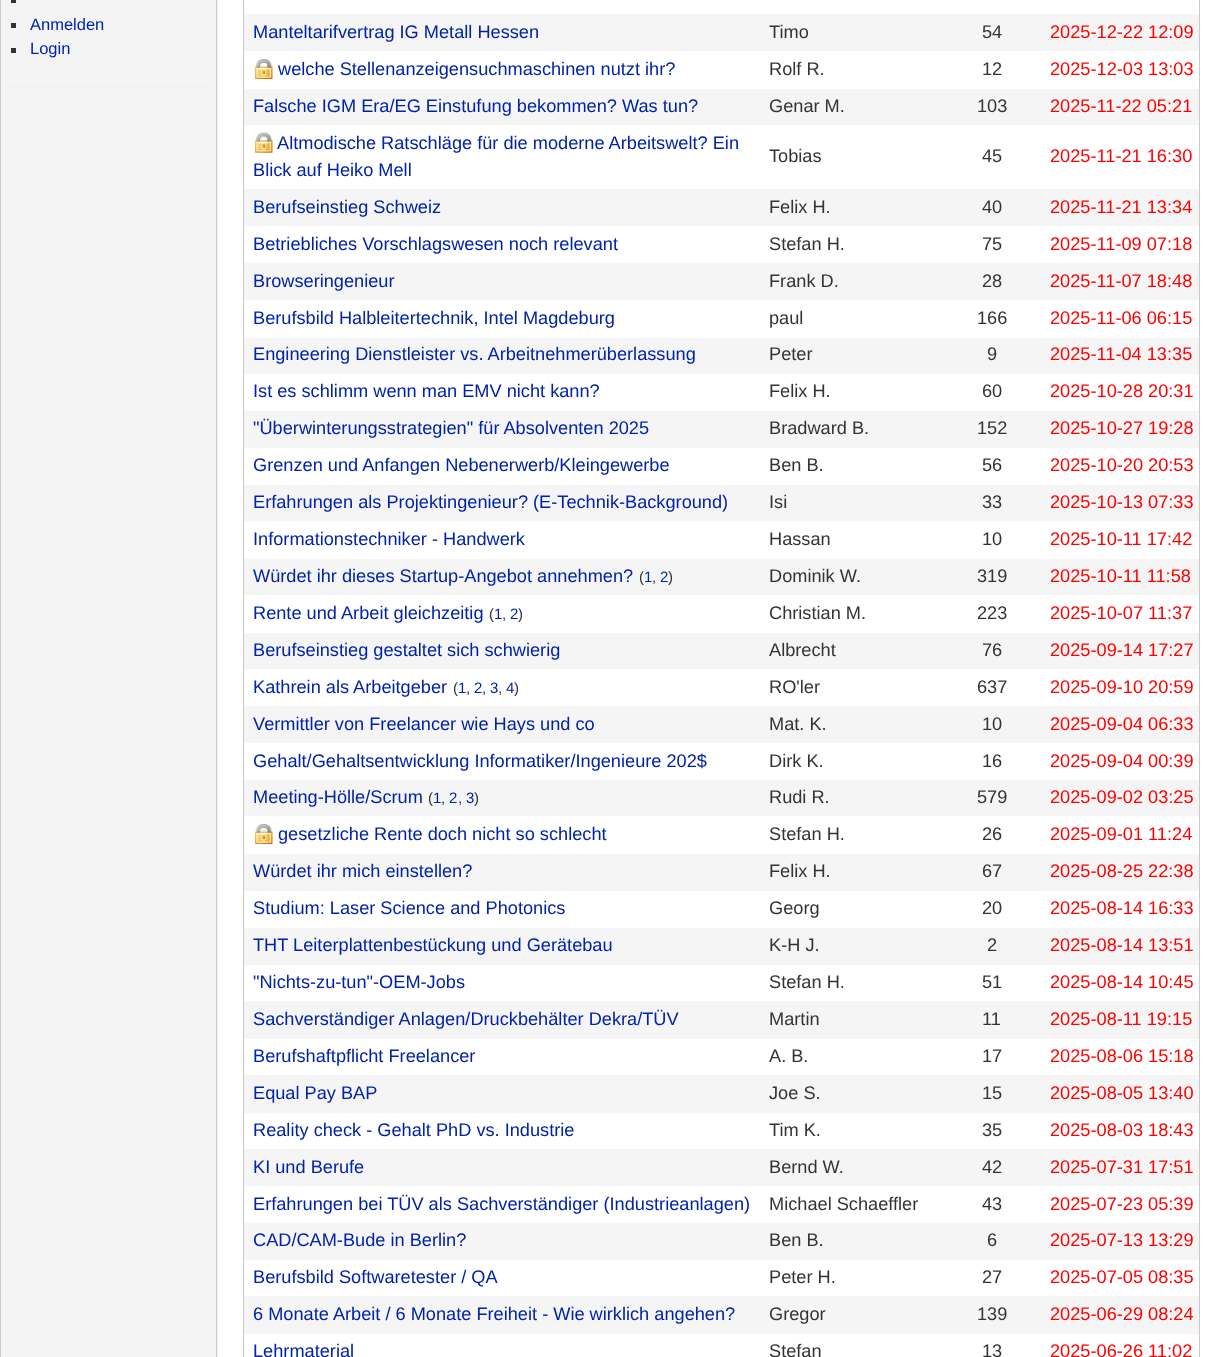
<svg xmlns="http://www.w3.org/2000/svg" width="1224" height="1357">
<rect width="100%" height="100%" fill="#f4f4f4"/>
<rect x="216" width="1" height="1357" fill="#cacaca"/>
<rect width="1" height="1357" fill="#cacaca"/>
<rect x="11" width="5" height="3" fill="#333"/>
<rect x="11" y="23" width="5" height="5" fill="#333"/>
<text x="30" y="30" style="font-family:Liberation Sans;font-size:16.5px;fill:#02a">Anmelden</text>
<rect x="11" y="48" width="5" height="5" fill="#333"/>
<text x="30" y="54" style="font-family:Liberation Sans;font-size:16.5px;fill:#02a">Login</text>
<rect x="9" y="86" width="200" height="1" fill="#eee"/>
<rect x="218" width="1006" height="1357" fill="#fff"/>
<rect x="1199" width="1" height="1357" fill="#cacaca"/>
<rect x="243" width="1" height="1357" fill="#cacaca"/>
<rect x="244" y="14" width="520" height="37" fill="#f5f5f5"/>
<text x="253" y="38" style="font-family:Liberation Sans;font-size:18.2px;fill:#02a">Manteltarifvertrag IG Metall Hessen</text>
<rect x="764" y="14" width="435" height="37" fill="#f5f5f5"/>
<text x="769" y="38" style="font-family:Liberation Sans;font-size:18.2px;fill:#333">Timo</text>
<text x="982" y="38" style="font-family:Liberation Sans;font-size:18.2px;fill:#333">54</text>
<text x="1050" y="38" style="font-family:Liberation Sans;font-size:18.2px;fill:#f00">2025-12-22 12:09</text>
<image x="254" y="59" width="19" height="20" href="media/1.png"/>
<text x="278" y="75" style="font-family:Liberation Sans;font-size:18.2px;fill:#02a">welche Stellenanzeigensuchmaschinen nutzt ihr?</text>
<text x="769" y="75" style="font-family:Liberation Sans;font-size:18.2px;fill:#333">Rolf R.</text>
<text x="982" y="75" style="font-family:Liberation Sans;font-size:18.2px;fill:#333">12</text>
<text x="1050" y="75" style="font-family:Liberation Sans;font-size:18.2px;fill:#f00">2025-12-03 13:03</text>
<rect x="244" y="89" width="520" height="36" fill="#f5f5f5"/>
<text x="253" y="112" style="font-family:Liberation Sans;font-size:18.2px;fill:#02a">Falsche IGM Era/EG Einstufung bekommen? Was tun?</text>
<rect x="764" y="89" width="435" height="36" fill="#f5f5f5"/>
<text x="769" y="112" style="font-family:Liberation Sans;font-size:18.2px;fill:#333">Genar M.</text>
<text x="977" y="112" style="font-family:Liberation Sans;font-size:18.2px;fill:#333">103</text>
<text x="1050" y="112" style="font-family:Liberation Sans;font-size:18.2px;fill:#f00">2025-11-22 05:21</text>
<image x="254" y="132" width="19" height="21" href="media/2.png"/>
<text x="277" y="149" style="font-family:Liberation Sans;font-size:18.2px;fill:#02a">Altmodische Ratschläge für die moderne Arbeitswelt? Ein</text>
<text x="253" y="176" style="font-family:Liberation Sans;font-size:18.2px;fill:#02a">Blick auf Heiko Mell</text>
<text x="769" y="162" style="font-family:Liberation Sans;font-size:18.2px;fill:#333">Tobias</text>
<text x="982" y="162" style="font-family:Liberation Sans;font-size:18.2px;fill:#333">45</text>
<text x="1050" y="162" style="font-family:Liberation Sans;font-size:18.2px;fill:#f00">2025-11-21 16:30</text>
<rect x="244" y="189" width="520" height="37" fill="#f5f5f5"/>
<text x="253" y="213" style="font-family:Liberation Sans;font-size:18.2px;fill:#02a">Berufseinstieg Schweiz</text>
<rect x="764" y="189" width="435" height="37" fill="#f5f5f5"/>
<text x="769" y="213" style="font-family:Liberation Sans;font-size:18.2px;fill:#333">Felix H.</text>
<text x="982" y="213" style="font-family:Liberation Sans;font-size:18.2px;fill:#333">40</text>
<text x="1050" y="213" style="font-family:Liberation Sans;font-size:18.2px;fill:#f00">2025-11-21 13:34</text>
<text x="253" y="250" style="font-family:Liberation Sans;font-size:18.2px;fill:#02a">Betriebliches Vorschlagswesen noch relevant</text>
<text x="769" y="250" style="font-family:Liberation Sans;font-size:18.2px;fill:#333">Stefan H.</text>
<text x="982" y="250" style="font-family:Liberation Sans;font-size:18.2px;fill:#333">75</text>
<text x="1050" y="250" style="font-family:Liberation Sans;font-size:18.2px;fill:#f00">2025-11-09 07:18</text>
<rect x="244" y="263" width="520" height="37" fill="#f5f5f5"/>
<text x="253" y="287" style="font-family:Liberation Sans;font-size:18.2px;fill:#02a">Browseringenieur</text>
<rect x="764" y="263" width="435" height="37" fill="#f5f5f5"/>
<text x="769" y="287" style="font-family:Liberation Sans;font-size:18.2px;fill:#333">Frank D.</text>
<text x="982" y="287" style="font-family:Liberation Sans;font-size:18.2px;fill:#333">28</text>
<text x="1050" y="287" style="font-family:Liberation Sans;font-size:18.2px;fill:#f00">2025-11-07 18:48</text>
<text x="253" y="324" style="font-family:Liberation Sans;font-size:18.2px;fill:#02a">Berufsbild Halbleitertechnik, Intel Magdeburg</text>
<text x="769" y="324" style="font-family:Liberation Sans;font-size:18.2px;fill:#333">paul</text>
<text x="977" y="324" style="font-family:Liberation Sans;font-size:18.2px;fill:#333">166</text>
<text x="1050" y="324" style="font-family:Liberation Sans;font-size:18.2px;fill:#f00">2025-11-06 06:15</text>
<rect x="244" y="338" width="520" height="36" fill="#f5f5f5"/>
<text x="253" y="360" style="font-family:Liberation Sans;font-size:18.2px;fill:#02a">Engineering Dienstleister vs. Arbeitnehmerüberlassung</text>
<rect x="764" y="338" width="435" height="36" fill="#f5f5f5"/>
<text x="769" y="360" style="font-family:Liberation Sans;font-size:18.2px;fill:#333">Peter</text>
<text x="987" y="360" style="font-family:Liberation Sans;font-size:18.2px;fill:#333">9</text>
<text x="1050" y="360" style="font-family:Liberation Sans;font-size:18.2px;fill:#f00">2025-11-04 13:35</text>
<text x="253" y="397" style="font-family:Liberation Sans;font-size:18.2px;fill:#02a">Ist es schlimm wenn man EMV nicht kann?</text>
<text x="769" y="397" style="font-family:Liberation Sans;font-size:18.2px;fill:#333">Felix H.</text>
<text x="982" y="397" style="font-family:Liberation Sans;font-size:18.2px;fill:#333">60</text>
<text x="1050" y="397" style="font-family:Liberation Sans;font-size:18.2px;fill:#f00">2025-10-28 20:31</text>
<rect x="244" y="411" width="520" height="37" fill="#f5f5f5"/>
<text x="253" y="434" style="font-family:Liberation Sans;font-size:18.2px;fill:#02a">"Überwinterungsstrategien" für Absolventen 2025</text>
<rect x="764" y="411" width="435" height="37" fill="#f5f5f5"/>
<text x="769" y="434" style="font-family:Liberation Sans;font-size:18.2px;fill:#333">Bradward B.</text>
<text x="977" y="434" style="font-family:Liberation Sans;font-size:18.2px;fill:#333">152</text>
<text x="1050" y="434" style="font-family:Liberation Sans;font-size:18.2px;fill:#f00">2025-10-27 19:28</text>
<text x="253" y="471" style="font-family:Liberation Sans;font-size:18.2px;fill:#02a">Grenzen und Anfangen Nebenerwerb/Kleingewerbe</text>
<text x="769" y="471" style="font-family:Liberation Sans;font-size:18.2px;fill:#333">Ben B.</text>
<text x="982" y="471" style="font-family:Liberation Sans;font-size:18.2px;fill:#333">56</text>
<text x="1050" y="471" style="font-family:Liberation Sans;font-size:18.2px;fill:#f00">2025-10-20 20:53</text>
<rect x="244" y="485" width="520" height="36" fill="#f5f5f5"/>
<text x="253" y="508" style="font-family:Liberation Sans;font-size:18.2px;fill:#02a">Erfahrungen als Projektingenieur? (E-Technik-Background)</text>
<rect x="764" y="485" width="435" height="36" fill="#f5f5f5"/>
<text x="769" y="508" style="font-family:Liberation Sans;font-size:18.2px;fill:#333">Isi</text>
<text x="982" y="508" style="font-family:Liberation Sans;font-size:18.2px;fill:#333">33</text>
<text x="1050" y="508" style="font-family:Liberation Sans;font-size:18.2px;fill:#f00">2025-10-13 07:33</text>
<text x="253" y="545" style="font-family:Liberation Sans;font-size:18.2px;fill:#02a">Informationstechniker - Handwerk</text>
<text x="769" y="545" style="font-family:Liberation Sans;font-size:18.2px;fill:#333">Hassan</text>
<text x="982" y="545" style="font-family:Liberation Sans;font-size:18.2px;fill:#333">10</text>
<text x="1050" y="545" style="font-family:Liberation Sans;font-size:18.2px;fill:#f00">2025-10-11 17:42</text>
<rect x="244" y="559" width="520" height="36" fill="#f5f5f5"/>
<text x="253" y="582" style="font-family:Liberation Sans;font-size:18.2px;fill:#02a">Würdet ihr dieses Startup-Angebot annehmen?</text>
<text x="639" y="582" style="font-family:Liberation Sans;font-size:15px;fill:#333">(</text>
<text x="644" y="582" style="font-family:Liberation Sans;font-size:15px;fill:#02a">1</text>
<text x="652" y="582" style="font-family:Liberation Sans;font-size:15px;fill:#333">,</text>
<text x="660" y="582" style="font-family:Liberation Sans;font-size:15px;fill:#02a">2</text>
<text x="668" y="582" style="font-family:Liberation Sans;font-size:15px;fill:#333">)</text>
<rect x="764" y="559" width="435" height="36" fill="#f5f5f5"/>
<text x="769" y="582" style="font-family:Liberation Sans;font-size:18.2px;fill:#333">Dominik W.</text>
<text x="977" y="582" style="font-family:Liberation Sans;font-size:18.2px;fill:#333">319</text>
<text x="1050" y="582" style="font-family:Liberation Sans;font-size:18.2px;fill:#f00">2025-10-11 11:58</text>
<text x="253" y="619" style="font-family:Liberation Sans;font-size:18.2px;fill:#02a">Rente und Arbeit gleichzeitig</text>
<text x="489" y="619" style="font-family:Liberation Sans;font-size:15px;fill:#333">(</text>
<text x="494" y="619" style="font-family:Liberation Sans;font-size:15px;fill:#02a">1</text>
<text x="502" y="619" style="font-family:Liberation Sans;font-size:15px;fill:#333">,</text>
<text x="510" y="619" style="font-family:Liberation Sans;font-size:15px;fill:#02a">2</text>
<text x="518" y="619" style="font-family:Liberation Sans;font-size:15px;fill:#333">)</text>
<text x="769" y="619" style="font-family:Liberation Sans;font-size:18.2px;fill:#333">Christian M.</text>
<text x="977" y="619" style="font-family:Liberation Sans;font-size:18.2px;fill:#333">223</text>
<text x="1050" y="619" style="font-family:Liberation Sans;font-size:18.2px;fill:#f00">2025-10-07 11:37</text>
<rect x="244" y="633" width="520" height="36" fill="#f5f5f5"/>
<text x="253" y="656" style="font-family:Liberation Sans;font-size:18.2px;fill:#02a">Berufseinstieg gestaltet sich schwierig</text>
<rect x="764" y="633" width="435" height="36" fill="#f5f5f5"/>
<text x="769" y="656" style="font-family:Liberation Sans;font-size:18.2px;fill:#333">Albrecht</text>
<text x="982" y="656" style="font-family:Liberation Sans;font-size:18.2px;fill:#333">76</text>
<text x="1050" y="656" style="font-family:Liberation Sans;font-size:18.2px;fill:#f00">2025-09-14 17:27</text>
<text x="253" y="693" style="font-family:Liberation Sans;font-size:18.2px;fill:#02a">Kathrein als Arbeitgeber</text>
<text x="453" y="693" style="font-family:Liberation Sans;font-size:15px;fill:#333">(</text>
<text x="458" y="693" style="font-family:Liberation Sans;font-size:15px;fill:#02a">1</text>
<text x="466" y="693" style="font-family:Liberation Sans;font-size:15px;fill:#333">,</text>
<text x="474" y="693" style="font-family:Liberation Sans;font-size:15px;fill:#02a">2</text>
<text x="482" y="693" style="font-family:Liberation Sans;font-size:15px;fill:#333">,</text>
<text x="490" y="693" style="font-family:Liberation Sans;font-size:15px;fill:#02a">3</text>
<text x="498" y="693" style="font-family:Liberation Sans;font-size:15px;fill:#333">,</text>
<text x="506" y="693" style="font-family:Liberation Sans;font-size:15px;fill:#02a">4</text>
<text x="514" y="693" style="font-family:Liberation Sans;font-size:15px;fill:#333">)</text>
<text x="769" y="693" style="font-family:Liberation Sans;font-size:18.2px;fill:#333">RO'ler</text>
<text x="977" y="693" style="font-family:Liberation Sans;font-size:18.2px;fill:#333">637</text>
<text x="1050" y="693" style="font-family:Liberation Sans;font-size:18.2px;fill:#f00">2025-09-10 20:59</text>
<rect x="244" y="706" width="520" height="37" fill="#f5f5f5"/>
<text x="253" y="730" style="font-family:Liberation Sans;font-size:18.2px;fill:#02a">Vermittler von Freelancer wie Hays und co</text>
<rect x="764" y="706" width="435" height="37" fill="#f5f5f5"/>
<text x="769" y="730" style="font-family:Liberation Sans;font-size:18.2px;fill:#333">Mat. K.</text>
<text x="982" y="730" style="font-family:Liberation Sans;font-size:18.2px;fill:#333">10</text>
<text x="1050" y="730" style="font-family:Liberation Sans;font-size:18.2px;fill:#f00">2025-09-04 06:33</text>
<text x="253" y="767" style="font-family:Liberation Sans;font-size:18.2px;fill:#02a">Gehalt/Gehaltsentwicklung Informatiker/Ingenieure 202$</text>
<text x="769" y="767" style="font-family:Liberation Sans;font-size:18.2px;fill:#333">Dirk K.</text>
<text x="982" y="767" style="font-family:Liberation Sans;font-size:18.2px;fill:#333">16</text>
<text x="1050" y="767" style="font-family:Liberation Sans;font-size:18.2px;fill:#f00">2025-09-04 00:39</text>
<rect x="244" y="780" width="520" height="36" fill="#f5f5f5"/>
<text x="253" y="803" style="font-family:Liberation Sans;font-size:18.2px;fill:#02a">Meeting-Hölle/Scrum</text>
<text x="428" y="803" style="font-family:Liberation Sans;font-size:15px;fill:#333">(</text>
<text x="433" y="803" style="font-family:Liberation Sans;font-size:15px;fill:#02a">1</text>
<text x="441" y="803" style="font-family:Liberation Sans;font-size:15px;fill:#333">,</text>
<text x="449" y="803" style="font-family:Liberation Sans;font-size:15px;fill:#02a">2</text>
<text x="458" y="803" style="font-family:Liberation Sans;font-size:15px;fill:#333">,</text>
<text x="466" y="803" style="font-family:Liberation Sans;font-size:15px;fill:#02a">3</text>
<text x="474" y="803" style="font-family:Liberation Sans;font-size:15px;fill:#333">)</text>
<rect x="764" y="780" width="435" height="36" fill="#f5f5f5"/>
<text x="769" y="803" style="font-family:Liberation Sans;font-size:18.2px;fill:#333">Rudi R.</text>
<text x="977" y="803" style="font-family:Liberation Sans;font-size:18.2px;fill:#333">579</text>
<text x="1050" y="803" style="font-family:Liberation Sans;font-size:18.2px;fill:#f00">2025-09-02 03:25</text>
<image x="254" y="824" width="19" height="20" href="media/1.png"/>
<text x="278" y="840" style="font-family:Liberation Sans;font-size:18.2px;fill:#02a">gesetzliche Rente doch nicht so schlecht</text>
<text x="769" y="840" style="font-family:Liberation Sans;font-size:18.2px;fill:#333">Stefan H.</text>
<text x="982" y="840" style="font-family:Liberation Sans;font-size:18.2px;fill:#333">26</text>
<text x="1050" y="840" style="font-family:Liberation Sans;font-size:18.2px;fill:#f00">2025-09-01 11:24</text>
<rect x="244" y="854" width="520" height="37" fill="#f5f5f5"/>
<text x="253" y="877" style="font-family:Liberation Sans;font-size:18.2px;fill:#02a">Würdet ihr mich einstellen?</text>
<rect x="764" y="854" width="435" height="37" fill="#f5f5f5"/>
<text x="769" y="877" style="font-family:Liberation Sans;font-size:18.2px;fill:#333">Felix H.</text>
<text x="982" y="877" style="font-family:Liberation Sans;font-size:18.2px;fill:#333">67</text>
<text x="1050" y="877" style="font-family:Liberation Sans;font-size:18.2px;fill:#f00">2025-08-25 22:38</text>
<text x="253" y="914" style="font-family:Liberation Sans;font-size:18.2px;fill:#02a">Studium: Laser Science and Photonics</text>
<text x="769" y="914" style="font-family:Liberation Sans;font-size:18.2px;fill:#333">Georg</text>
<text x="982" y="914" style="font-family:Liberation Sans;font-size:18.2px;fill:#333">20</text>
<text x="1050" y="914" style="font-family:Liberation Sans;font-size:18.2px;fill:#f00">2025-08-14 16:33</text>
<rect x="244" y="928" width="520" height="37" fill="#f5f5f5"/>
<text x="253" y="951" style="font-family:Liberation Sans;font-size:18.2px;fill:#02a">THT Leiterplattenbestückung und Gerätebau</text>
<rect x="764" y="928" width="435" height="37" fill="#f5f5f5"/>
<text x="769" y="951" style="font-family:Liberation Sans;font-size:18.2px;fill:#333">K-H J.</text>
<text x="987" y="951" style="font-family:Liberation Sans;font-size:18.2px;fill:#333">2</text>
<text x="1050" y="951" style="font-family:Liberation Sans;font-size:18.2px;fill:#f00">2025-08-14 13:51</text>
<text x="253" y="988" style="font-family:Liberation Sans;font-size:18.2px;fill:#02a">"Nichts-zu-tun"-OEM-Jobs</text>
<text x="769" y="988" style="font-family:Liberation Sans;font-size:18.2px;fill:#333">Stefan H.</text>
<text x="982" y="988" style="font-family:Liberation Sans;font-size:18.2px;fill:#333">51</text>
<text x="1050" y="988" style="font-family:Liberation Sans;font-size:18.2px;fill:#f00">2025-08-14 10:45</text>
<rect x="244" y="1001" width="520" height="38" fill="#f5f5f5"/>
<text x="253" y="1025" style="font-family:Liberation Sans;font-size:18.2px;fill:#02a">Sachverständiger Anlagen/Druckbehälter Dekra/TÜV</text>
<rect x="764" y="1001" width="435" height="38" fill="#f5f5f5"/>
<text x="769" y="1025" style="font-family:Liberation Sans;font-size:18.2px;fill:#333">Martin</text>
<text x="982" y="1025" style="font-family:Liberation Sans;font-size:18.2px;fill:#333">11</text>
<text x="1050" y="1025" style="font-family:Liberation Sans;font-size:18.2px;fill:#f00">2025-08-11 19:15</text>
<text x="253" y="1062" style="font-family:Liberation Sans;font-size:18.2px;fill:#02a">Berufshaftpflicht Freelancer</text>
<text x="769" y="1062" style="font-family:Liberation Sans;font-size:18.2px;fill:#333">A. B.</text>
<text x="982" y="1062" style="font-family:Liberation Sans;font-size:18.2px;fill:#333">17</text>
<text x="1050" y="1062" style="font-family:Liberation Sans;font-size:18.2px;fill:#f00">2025-08-06 15:18</text>
<rect x="244" y="1075" width="520" height="38" fill="#f5f5f5"/>
<text x="253" y="1099" style="font-family:Liberation Sans;font-size:18.2px;fill:#02a">Equal Pay BAP</text>
<rect x="764" y="1075" width="435" height="38" fill="#f5f5f5"/>
<text x="769" y="1099" style="font-family:Liberation Sans;font-size:18.2px;fill:#333">Joe S.</text>
<text x="982" y="1099" style="font-family:Liberation Sans;font-size:18.2px;fill:#333">15</text>
<text x="1050" y="1099" style="font-family:Liberation Sans;font-size:18.2px;fill:#f00">2025-08-05 13:40</text>
<text x="253" y="1136" style="font-family:Liberation Sans;font-size:18.2px;fill:#02a">Reality check - Gehalt PhD vs. Industrie</text>
<text x="769" y="1136" style="font-family:Liberation Sans;font-size:18.2px;fill:#333">Tim K.</text>
<text x="982" y="1136" style="font-family:Liberation Sans;font-size:18.2px;fill:#333">35</text>
<text x="1050" y="1136" style="font-family:Liberation Sans;font-size:18.2px;fill:#f00">2025-08-03 18:43</text>
<rect x="244" y="1149" width="520" height="37" fill="#f5f5f5"/>
<text x="253" y="1173" style="font-family:Liberation Sans;font-size:18.2px;fill:#02a">KI und Berufe</text>
<rect x="764" y="1149" width="435" height="37" fill="#f5f5f5"/>
<text x="769" y="1173" style="font-family:Liberation Sans;font-size:18.2px;fill:#333">Bernd W.</text>
<text x="982" y="1173" style="font-family:Liberation Sans;font-size:18.2px;fill:#333">42</text>
<text x="1050" y="1173" style="font-family:Liberation Sans;font-size:18.2px;fill:#f00">2025-07-31 17:51</text>
<text x="253" y="1210" style="font-family:Liberation Sans;font-size:18.2px;fill:#02a">Erfahrungen bei TÜV als Sachverständiger (Industrieanlagen)</text>
<text x="769" y="1210" style="font-family:Liberation Sans;font-size:18.2px;fill:#333">Michael Schaeffler</text>
<text x="982" y="1210" style="font-family:Liberation Sans;font-size:18.2px;fill:#333">43</text>
<text x="1050" y="1210" style="font-family:Liberation Sans;font-size:18.2px;fill:#f00">2025-07-23 05:39</text>
<rect x="244" y="1223" width="520" height="37" fill="#f5f5f5"/>
<text x="253" y="1246" style="font-family:Liberation Sans;font-size:18.2px;fill:#02a">CAD/CAM-Bude in Berlin?</text>
<rect x="764" y="1223" width="435" height="37" fill="#f5f5f5"/>
<text x="769" y="1246" style="font-family:Liberation Sans;font-size:18.2px;fill:#333">Ben B.</text>
<text x="987" y="1246" style="font-family:Liberation Sans;font-size:18.2px;fill:#333">6</text>
<text x="1050" y="1246" style="font-family:Liberation Sans;font-size:18.2px;fill:#f00">2025-07-13 13:29</text>
<text x="253" y="1283" style="font-family:Liberation Sans;font-size:18.2px;fill:#02a">Berufsbild Softwaretester / QA</text>
<text x="769" y="1283" style="font-family:Liberation Sans;font-size:18.2px;fill:#333">Peter H.</text>
<text x="982" y="1283" style="font-family:Liberation Sans;font-size:18.2px;fill:#333">27</text>
<text x="1050" y="1283" style="font-family:Liberation Sans;font-size:18.2px;fill:#f00">2025-07-05 08:35</text>
<rect x="244" y="1296" width="520" height="38" fill="#f5f5f5"/>
<text x="253" y="1320" style="font-family:Liberation Sans;font-size:18.2px;fill:#02a">6 Monate Arbeit / 6 Monate Freiheit - Wie wirklich angehen?</text>
<rect x="764" y="1296" width="435" height="38" fill="#f5f5f5"/>
<text x="769" y="1320" style="font-family:Liberation Sans;font-size:18.2px;fill:#333">Gregor</text>
<text x="977" y="1320" style="font-family:Liberation Sans;font-size:18.2px;fill:#333">139</text>
<text x="1050" y="1320" style="font-family:Liberation Sans;font-size:18.2px;fill:#f00">2025-06-29 08:24</text>
<text x="253" y="1357" style="font-family:Liberation Sans;font-size:18.2px;fill:#02a">Lehrmaterial</text>
<text x="769" y="1357" style="font-family:Liberation Sans;font-size:18.2px;fill:#333">Stefan</text>
<text x="982" y="1357" style="font-family:Liberation Sans;font-size:18.2px;fill:#333">13</text>
<text x="1050" y="1357" style="font-family:Liberation Sans;font-size:18.2px;fill:#f00">2025-06-26 11:02</text>
</svg>
